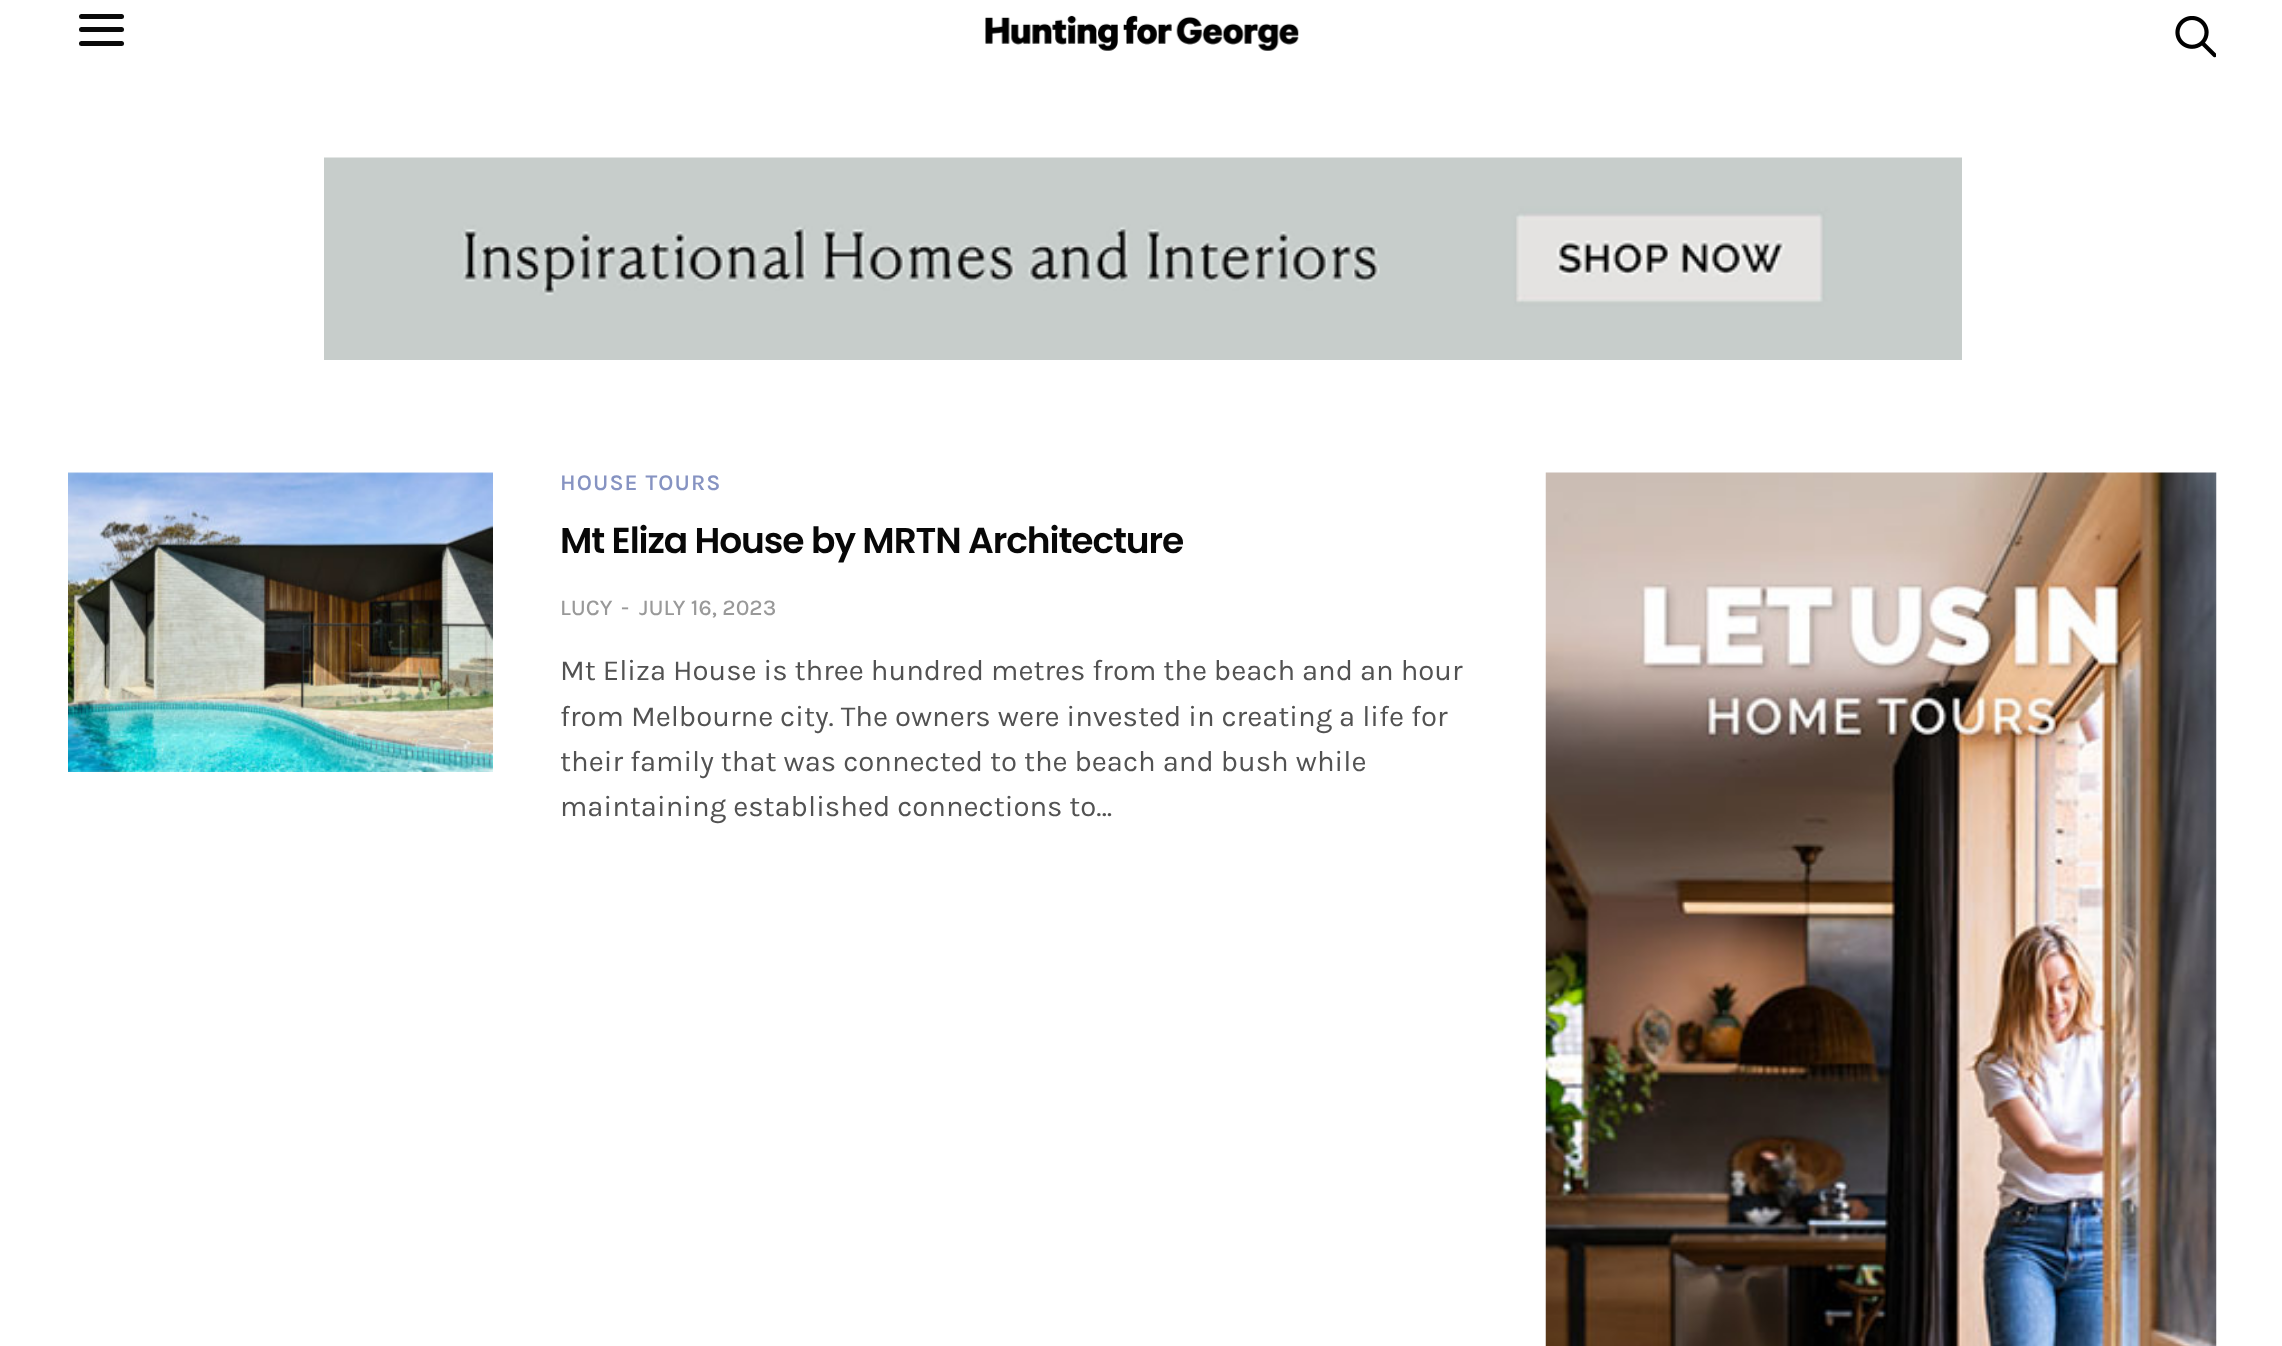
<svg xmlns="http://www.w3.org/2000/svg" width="2282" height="1346">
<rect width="100%" height="100%" fill="#fff"/>
<rect x="79" y="14" width="45" height="5" rx="2.5" fill="#0a0a0a"/>
<rect x="79" y="27" width="45" height="5" rx="2.5" fill="#0a0a0a"/>
<rect x="79" y="41" width="45" height="5" rx="2.5" fill="#0a0a0a"/>
<image x="985" y="15" width="314" height="36" href="media/1.png"/>
<image x="2175" y="16" width="41" height="42" href="media/2.png"/>
<image x="324" y="157" width="1638" height="203" href="media/3.png"/>
<image x="68" y="472" width="425" height="300" href="media/4.png"/>
<text x="560" y="490" style="font-family:Karla;font-size:22.5px;font-weight:600;letter-spacing:1.1px;fill:#8693c2">HOUSE TOURS</text>
<text x="560" y="553" style="font-family:Poppins;font-size:36px;font-weight:600;letter-spacing:-1.1px;fill:#080808">Mt Eliza House by MRTN Architecture</text>
<text x="560" y="615" style="font-family:Karla;font-size:22.5px;font-weight:500;fill:#999">LUCY</text>
<text x="621" y="615" style="font-family:Karla;font-size:22.5px;font-weight:500;fill:#999">-</text>
<text x="639" y="615" style="font-family:Karla;font-size:22.5px;font-weight:500;fill:#999">JULY 16, 2023</text>
<text x="560" y="680" style="font-family:Karla;font-size:29.25px;fill:#525252">Mt Eliza House is three hundred metres from the beach and an hour</text>
<text x="560" y="726" style="font-family:Karla;font-size:29.25px;fill:#525252">from Melbourne city. The owners were invested in creating a life for</text>
<text x="560" y="771" style="font-family:Karla;font-size:29.25px;fill:#525252">their family that was connected to the beach and bush while</text>
<text x="560" y="816" style="font-family:Karla;font-size:29.25px;fill:#525252">maintaining established connections to…</text>
<image x="1545" y="472" width="672" height="874" href="media/5.png"/>
</svg>
